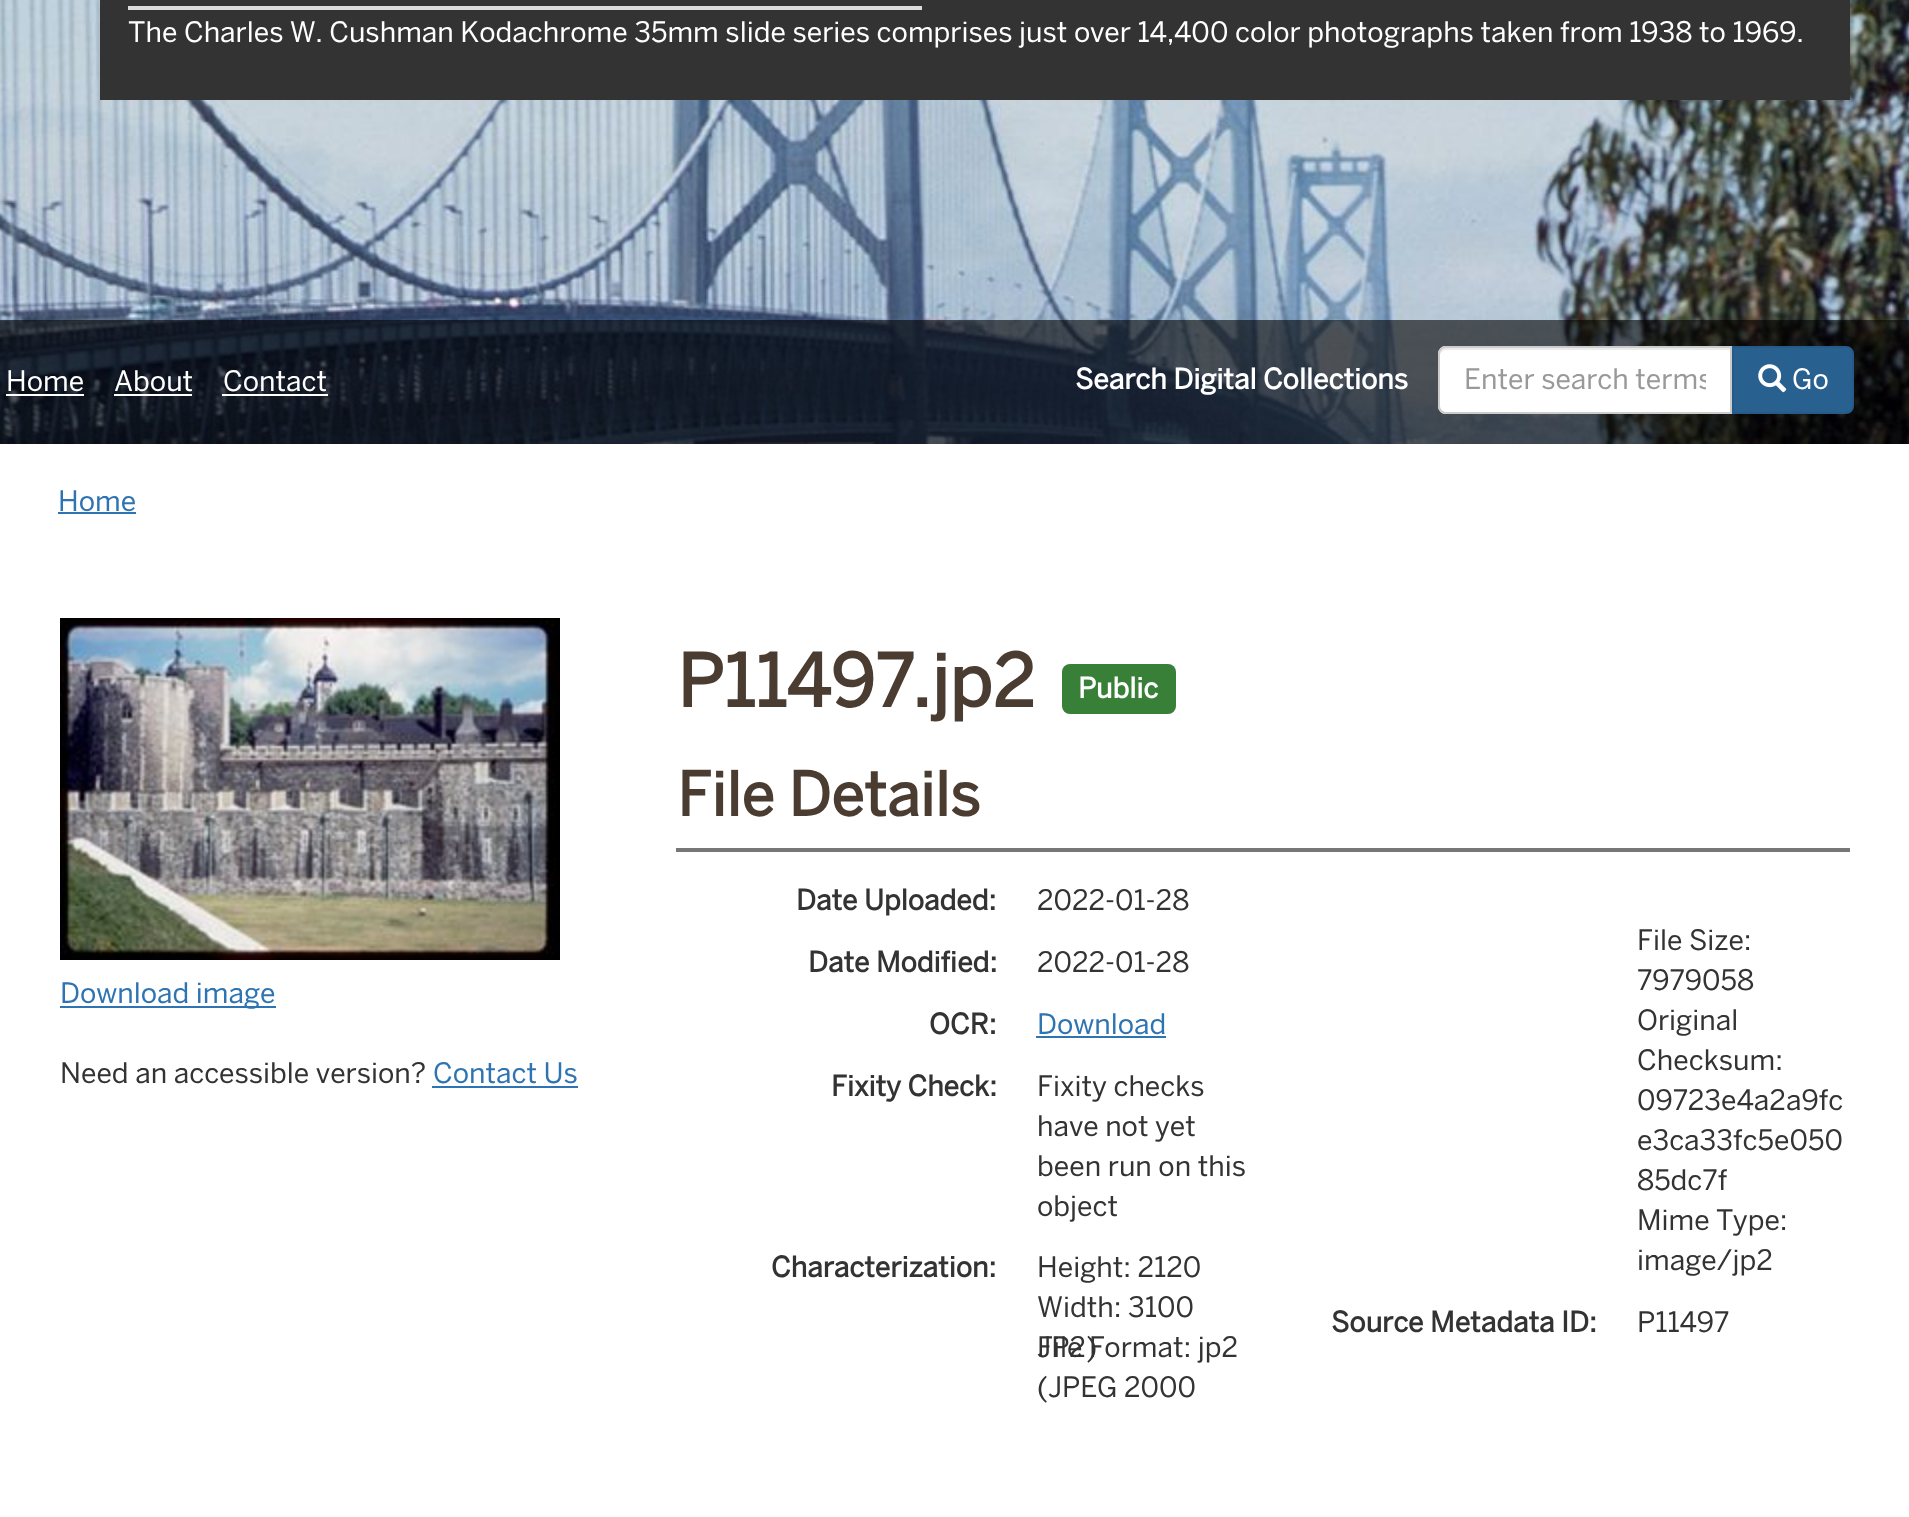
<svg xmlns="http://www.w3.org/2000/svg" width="1909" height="1517">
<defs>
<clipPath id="clip1"><rect x="1464" y="362" width="242" height="36"/></clipPath>
</defs>
<rect width="100%" height="100%" fill="#fff"/>
<image x="0" y="0" width="1909" height="444" href="media/1.png"/>
<rect x="100" width="1750" height="100" fill="#333"/>
<rect x="128" y="6" width="794" height="4" fill="#dcdcdc"/>
<text x="128" y="42" style="font-family:'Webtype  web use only';font-size:28px;fill:#fff">The Charles W. Cushman Kodachrome 35mm slide series comprises just over 14,400 color photographs taken from 1938 to 1969.</text>
<rect y="320" width="1909" height="124" fill="#00000099"/>
<text x="6" y="391" style="font-family:'Webtype  web use only';font-size:28px;fill:#fff">Home</text>
<rect x="6" y="394" width="78" height="2" fill="#fff"/>
<text x="114" y="391" style="font-family:'Webtype  web use only';font-size:28px;fill:#fff">About</text>
<rect x="114" y="394" width="78" height="2" fill="#fff"/>
<text x="223" y="391" style="font-family:'Webtype  web use only';font-size:28px;fill:#fff">Contact</text>
<rect x="222" y="394" width="106" height="2" fill="#fff"/>
<text x="1075" y="389" style="font-family:'Webtype  web use only';font-size:28px;font-weight:bold;fill:#fff">Search Digital Collections</text>
<path d="M1446 346h286v68h-286c-4.5 0-8-3.5-8-8v-52c0-4.5 3.5-8 8-8z" fill="#fff"/>
<path d="M1446 350h284v-2h-284c-5 0-6 4-6 8c0-3 3-6 6-6z" fill="#ececec"/>
<path d="M1446 347h285v66h-285c-4 0-7-3-7-7v-52c0-4 3-7 7-7z" fill="none" stroke="#ccc" stroke-width="2"/>
<g clip-path="url(#clip1)">
<text x="1464" y="389" style="font-family:'Webtype  web use only';font-size:28px;fill:#999">Enter search terms</text>
</g>
<path d="M1733 347h113c4 0 7 3 7 7v52c0 4-3 7-7 7h-113z" fill="#286090" stroke="#265b89" stroke-width="2"/>
<image x="1758" y="364" width="29" height="29" href="media/2.png"/>
<text x="1792" y="389" style="font-family:'Webtype  web use only';font-size:28px;fill:#fff">Go</text>
<text x="58" y="511" style="font-family:'Webtype  web use only';font-size:28px;fill:#2e74b2">Home</text>
<rect x="58" y="512" width="78" height="2" fill="#2e74b2"/>
<image x="60" y="618" width="500" height="342" href="media/3.png"/>
<rect x="60" y="1006" width="216" height="2" fill="#2e74b2"/>
<text x="60" y="1003" style="font-family:'Webtype  web use only';font-size:28px;fill:#2e74b2">Download image</text>
<text x="60" y="1083" style="font-family:'Webtype  web use only';font-size:28px;fill:#333">Need an accessible version?</text>
<text x="433" y="1083" style="font-family:'Webtype  web use only';font-size:28px;fill:#2e74b2">Contact Us</text>
<rect x="432" y="1086" width="146" height="2" fill="#2e74b2"/>
<text x="677" y="707" style="font-family:'Webtype  web use only';font-size:72px;font-weight:bold;fill:#4a3c31">P11497.jp2</text>
<rect x="1062" y="664" width="114" height="50" rx="8" fill="#387f38"/>
<text x="1078" y="698" style="font-family:'Webtype  web use only';font-size:28px;font-weight:bold;fill:#fff">Public</text>
<text x="677" y="816" style="font-family:'Webtype  web use only';font-size:60px;font-weight:bold;fill:#4a3c31">File Details</text>
<rect x="676" y="848" width="1174" height="4" fill="#777"/>
<text x="796" y="910" style="font-family:'Webtype  web use only';font-size:28px;font-weight:bold;fill:#333">Date Uploaded:</text>
<text x="1037" y="910" style="font-family:'Webtype  web use only';font-size:28px;fill:#333">2022-01-28</text>
<text x="1637" y="950" style="font-family:'Webtype  web use only';font-size:28px;fill:#333">File Size:</text>
<text x="1637" y="990" style="font-family:'Webtype  web use only';font-size:28px;fill:#333">7979058</text>
<text x="1637" y="1030" style="font-family:'Webtype  web use only';font-size:28px;fill:#333">Original</text>
<text x="1637" y="1070" style="font-family:'Webtype  web use only';font-size:28px;fill:#333">Checksum:</text>
<text x="1637" y="1110" style="font-family:'Webtype  web use only';font-size:28px;fill:#333">09723e4a2a9fc</text>
<text x="1637" y="1150" style="font-family:'Webtype  web use only';font-size:28px;fill:#333">e3ca33fc5e050</text>
<text x="1637" y="1190" style="font-family:'Webtype  web use only';font-size:28px;fill:#333">85dc7f</text>
<text x="1037" y="1277" style="font-family:'Webtype  web use only';font-size:28px;fill:#333">Height: 2120</text>
<text x="1637" y="1230" style="font-family:'Webtype  web use only';font-size:28px;fill:#333">Mime Type:</text>
<text x="1637" y="1270" style="font-family:'Webtype  web use only';font-size:28px;fill:#333">image/jp2</text>
<text x="1037" y="1317" style="font-family:'Webtype  web use only';font-size:28px;fill:#333">Width: 3100</text>
<text x="1037" y="1357" style="font-family:'Webtype  web use only';font-size:28px;fill:#333">File Format: jp2</text>
<text x="1037" y="1357" style="font-family:'Webtype  web use only';font-size:28px;fill:#333">JP2)</text>
<text x="1037" y="1397" style="font-family:'Webtype  web use only';font-size:28px;fill:#333">(JPEG 2000</text>
<text x="808" y="972" style="font-family:'Webtype  web use only';font-size:28px;font-weight:bold;fill:#333">Date Modified:</text>
<text x="1037" y="972" style="font-family:'Webtype  web use only';font-size:28px;fill:#333">2022-01-28</text>
<text x="929" y="1034" style="font-family:'Webtype  web use only';font-size:28px;font-weight:bold;fill:#333">OCR:</text>
<text x="1037" y="1034" style="font-family:'Webtype  web use only';font-size:28px;fill:#2e74b2">Download</text>
<rect x="1036" y="1036" width="130" height="2" fill="#2e74b2"/>
<text x="831" y="1096" style="font-family:'Webtype  web use only';font-size:28px;font-weight:bold;fill:#333">Fixity Check:</text>
<text x="1037" y="1096" style="font-family:'Webtype  web use only';font-size:28px;fill:#333">Fixity checks</text>
<text x="1037" y="1136" style="font-family:'Webtype  web use only';font-size:28px;fill:#333">have not yet</text>
<text x="1037" y="1176" style="font-family:'Webtype  web use only';font-size:28px;fill:#333">been run on this</text>
<text x="1037" y="1216" style="font-family:'Webtype  web use only';font-size:28px;fill:#333">object</text>
<text x="771" y="1277" style="font-family:'Webtype  web use only';font-size:28px;font-weight:bold;fill:#333">Characterization:</text>
<text x="1331" y="1332" style="font-family:'Webtype  web use only';font-size:28px;font-weight:bold;fill:#333">Source Metadata ID:</text>
<text x="1637" y="1332" style="font-family:'Webtype  web use only';font-size:28px;fill:#333">P11497</text>
</svg>
